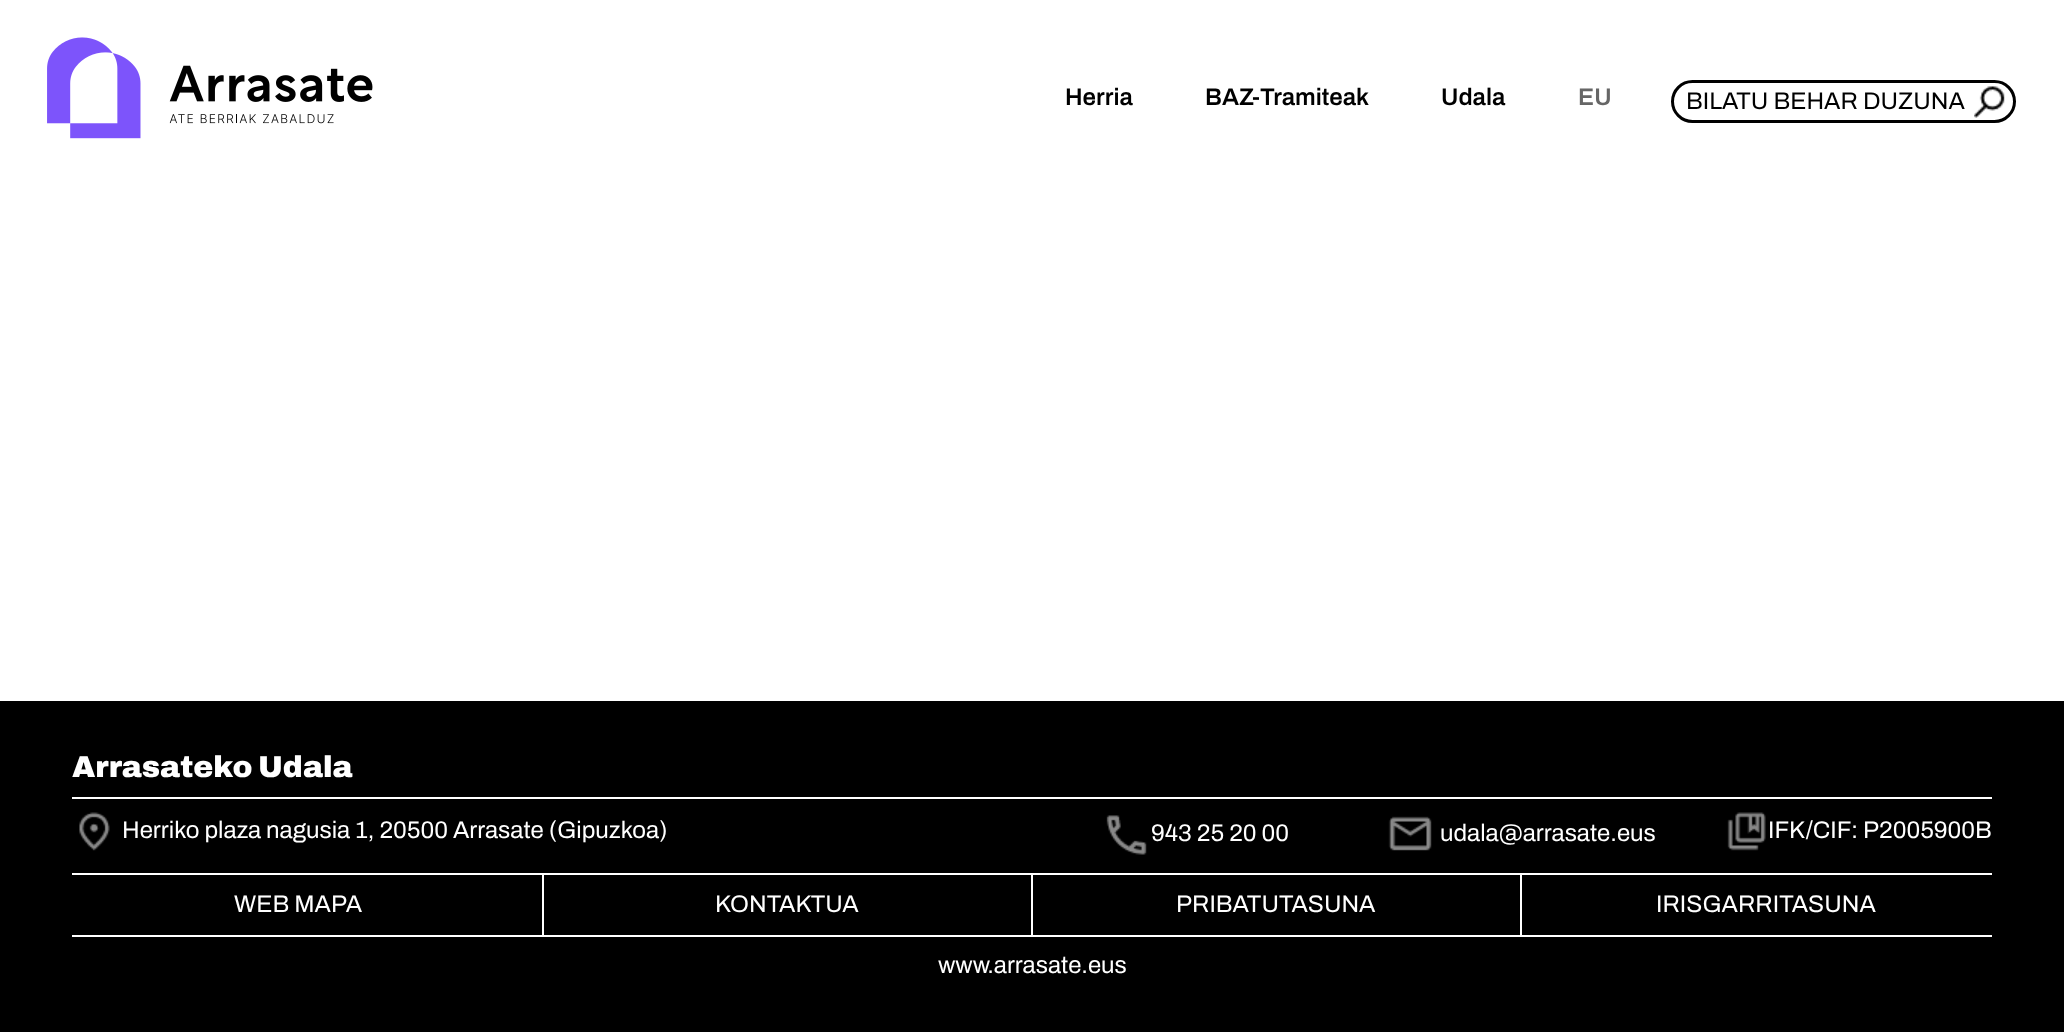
<svg xmlns="http://www.w3.org/2000/svg" width="2064" height="1032">
<rect width="100%" height="100%" fill="#fff"/>
<image x="47" y="37" width="326" height="102" href="media/1.png"/>
<text x="1065" y="105" style="font-family:Archivo;font-size:24px;font-weight:600;fill:#000">Herria</text>
<text x="1205" y="105" style="font-family:Archivo;font-size:24px;font-weight:600;fill:#000">BAZ-Tramiteak</text>
<text x="1441" y="105" style="font-family:Archivo;font-size:24px;font-weight:600;fill:#000">Udala</text>
<text x="1578" y="105" style="font-family:Archivo;font-size:24px;font-weight:600;fill:#666">EU</text>
<image x="1974" y="86" width="31" height="32" href="media/2.png"/>
<rect x="1672.5" y="81.5" width="342" height="40" rx="20" fill="none" stroke="#000" stroke-width="3"/>
<text x="1686" y="109" style="font-family:Archivo;font-size:24px;fill:#000">BILATU BEHAR DUZUNA</text>
<rect y="701" width="2064" height="331" fill="#000"/>
<text x="72" y="777" style="font-family:Archivo;font-size:30px;font-weight:900;fill:#fff">Arrasateko Udala</text>
<rect x="72" y="797" width="1920" height="2" fill="#fff"/>
<image x="79" y="812" width="31" height="39" href="media/3.png"/>
<text x="122" y="838" style="font-family:Archivo;font-size:24px;fill:#fff">Herriko plaza nagusia 1, 20500 Arrasate (Gipuzkoa)</text>
<image x="1106" y="815" width="41" height="40" href="media/4.png"/>
<text x="1151" y="841" style="font-family:Archivo;font-size:24px;fill:#fff">943 25 20 00</text>
<image x="1388" y="816" width="44" height="35" href="media/5.png"/>
<text x="1440" y="841" style="font-family:Archivo;font-size:24px;fill:#fff">udala@arrasate.eus</text>
<image x="1727" y="812" width="39" height="39" href="media/6.png"/>
<text x="1768" y="838" style="font-family:Archivo;font-size:24px;fill:#fff">IFK/CIF: P2005900B</text>
<rect x="72" y="873" width="1920" height="2" fill="#fff"/>
<rect x="542" y="875" width="2" height="60" fill="#fff"/>
<text x="234" y="912" style="font-family:Archivo;font-size:24px;fill:#fff">WEB MAPA</text>
<rect x="1031" y="875" width="2" height="60" fill="#fff"/>
<text x="715" y="912" style="font-family:Archivo;font-size:24px;fill:#fff">KONTAKTUA</text>
<rect x="1520" y="875" width="2" height="60" fill="#fff"/>
<text x="1176" y="912" style="font-family:Archivo;font-size:24px;fill:#fff">PRIBATUTASUNA</text>
<text x="1656" y="912" style="font-family:Archivo;font-size:24px;fill:#fff">IRISGARRITASUNA</text>
<rect x="72" y="935" width="1920" height="2" fill="#fff"/>
<text x="938" y="973" style="font-family:Archivo;font-size:24px;fill:#fff">www.arrasate.eus</text>
</svg>
